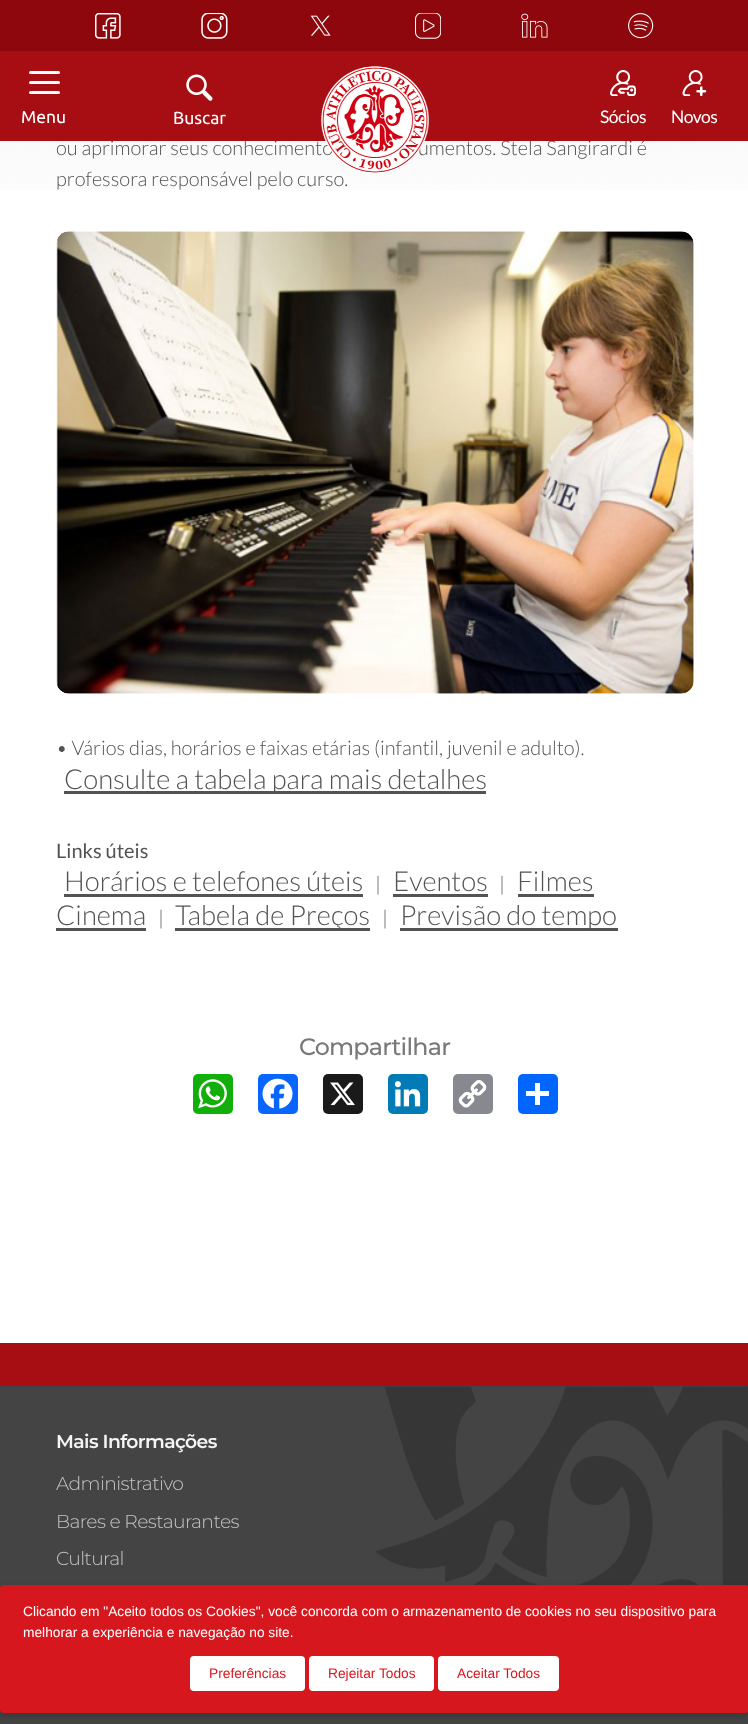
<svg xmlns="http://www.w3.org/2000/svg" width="748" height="1724">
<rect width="100%" height="100%" fill="#fff"/>
<image x="0" y="141" width="748" height="49" href="media/11.png"/>
<text x="56" y="155" style="font-family:Lato;font-size:20px;font-weight:300;fill:#535353">ou aprimorar seus conhecimento</text>
<text x="418" y="155" style="font-family:Lato;font-size:20px;font-weight:300;fill:#535353">umentos. Stela Sangirardi é</text>
<rect y="51" width="748" height="90" fill="#a70e13"/>
<rect width="748" height="51" fill="#8e070c"/>
<image x="95" y="13" width="26" height="26" href="media/1.png"/>
<image x="201" y="13" width="27" height="26" href="media/2.png"/>
<image x="310" y="15" width="21" height="21" href="media/3.png"/>
<image x="415" y="13" width="26" height="26" href="media/4.png"/>
<image x="521" y="13" width="27" height="25" href="media/5.png"/>
<image x="628" y="13" width="26" height="26" href="media/6.png"/>
<rect x="29" y="71" width="31" height="3" rx="1.5" fill="#fff"/>
<rect x="29" y="81" width="31" height="3" rx="1.5" fill="#fff"/>
<rect x="29" y="91" width="31" height="3" rx="1.5" fill="#fff"/>
<text x="21" y="123" style="font-family:Ubuntu;font-size:17.5px;fill:#fff">Menu</text>
<image x="186" y="74" width="27" height="27" href="media/7.png"/>
<text x="173" y="124" style="font-family:Ubuntu;font-size:17.5px;fill:#fff">Buscar</text>
<text x="56" y="186" style="font-family:Lato;font-size:20px;font-weight:300;fill:#535353">professora responsável pelo curso.</text>
<image x="321" y="66" width="108" height="107" href="media/8.png"/>
<image x="610" y="70" width="26" height="26" href="media/9.png"/>
<text x="600" y="123" style="font-family:Lato;font-size:17.5px;letter-spacing:-0.5px;fill:#fff">Sócios</text>
<image x="682" y="70" width="25" height="26" href="media/10.png"/>
<text x="671" y="123" style="font-family:Lato;font-size:17.5px;letter-spacing:-0.5px;fill:#fff">Novos</text>
<image x="56" y="231" width="638" height="463" href="media/12.png"/>
<text x="56" y="755" style="font-family:Lato;font-size:20px;font-weight:300;fill:#535353">• Vários dias, horários e faixas etárias (infantil, juvenil e adulto).</text>
<rect x="64" y="791" width="422" height="3" fill="#535353"/>
<text x="64" y="789" style="font-family:Lato;font-size:27.5px;font-weight:300;fill:#535353">Consulte a tabela para mais detalhes</text>
<text x="56" y="858" style="font-family:Lato;font-size:20px;fill:#535353">Links úteis</text>
<text x="64" y="891" style="font-family:Lato;font-size:27.5px;font-weight:300;fill:#535353">Horários e telefones úteis</text>
<rect x="64" y="894" width="299" height="3" fill="#535353"/>
<text x="375" y="891" style="font-family:Lato;font-size:20px;font-weight:300;fill:#535353">|</text>
<text x="393" y="891" style="font-family:Lato;font-size:27.5px;font-weight:300;fill:#535353">Eventos</text>
<rect x="393" y="894" width="95" height="3" fill="#535353"/>
<text x="499" y="891" style="font-family:Lato;font-size:20px;font-weight:300;fill:#535353">|</text>
<text x="517" y="891" style="font-family:Lato;font-size:27.5px;font-weight:300;fill:#535353">Filmes</text>
<rect x="518" y="894" width="76" height="3" fill="#535353"/>
<text x="56" y="925" style="font-family:Lato;font-size:27.5px;font-weight:300;fill:#535353">Cinema</text>
<rect x="56" y="928" width="90" height="3" fill="#535353"/>
<text x="158" y="925" style="font-family:Lato;font-size:20px;font-weight:300;fill:#535353">|</text>
<rect x="175" y="928" width="195" height="3" fill="#535353"/>
<text x="175" y="925" style="font-family:Lato;font-size:27.5px;font-weight:300;fill:#535353">Tabela de Preços</text>
<text x="382" y="925" style="font-family:Lato;font-size:20px;font-weight:300;fill:#535353">|</text>
<rect x="400" y="928" width="218" height="3" fill="#535353"/>
<text x="400" y="925" style="font-family:Lato;font-size:27.5px;font-weight:300;fill:#535353">Previsão do tempo</text>
<text x="299" y="1055" style="font-family:Montserrat;font-size:23.75px;font-weight:500;letter-spacing:-0.75px;fill:#797979">Compartilhar</text>
<rect x="193" y="1074" width="40" height="40" rx="5" fill="#12af0a"/>
<image x="198" y="1079" width="29" height="30" href="media/13.png"/>
<rect x="258" y="1074" width="40" height="40" rx="5" fill="#0866ff"/>
<image x="262" y="1078" width="31" height="31" href="media/14.png"/>
<rect x="323" y="1074" width="40" height="40" rx="5" fill="#1a1a1a"/>
<image x="330" y="1082" width="25" height="24" href="media/15.png"/>
<rect x="388" y="1074" width="40" height="40" rx="5" fill="#007bb5"/>
<image x="394" y="1081" width="27" height="26" href="media/16.png"/>
<rect x="453" y="1074" width="40" height="40" rx="5" fill="#888990"/>
<image x="458" y="1080" width="29" height="28" href="media/17.png"/>
<rect x="518" y="1074" width="40" height="40" rx="5" fill="#0166ff"/>
<rect x="535" y="1083" width="5" height="22" fill="#fff"/>
<rect x="526" y="1091" width="23" height="5" fill="#fff"/>
<rect y="1343" width="748" height="43" fill="#a70e13"/>
<rect y="1386" width="748" height="338" fill="#444"/>
<text x="56" y="1448" style="font-family:Montserrat;font-size:18.75px;font-weight:600;letter-spacing:-0.6px;fill:#f5f5f5">Mais Informações</text>
<text x="56" y="1490" style="font-family:Montserrat;font-size:18.75px;font-weight:300;letter-spacing:-0.6px;fill:#c4c4c4">Administrativo</text>
<text x="56" y="1528" style="font-family:Montserrat;font-size:18.75px;font-weight:300;letter-spacing:-0.6px;fill:#c4c4c4">Bares e Restaurantes</text>
<text x="56" y="1565" style="font-family:Montserrat;font-size:18.75px;font-weight:300;letter-spacing:-0.6px;fill:#c4c4c4">Cultural</text>
<image x="375" y="1386" width="373" height="201" href="media/18.png"/>
<rect y="1589" width="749" height="127" rx="4" fill="#00000033" filter="blur(4px)"/>
<rect y="1585" width="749" height="128" rx="4" fill="#d7171e"/>
<text x="23" y="1616" style="font-family:Liberation Sans;font-size:13.75px;fill:#fff">Clicando em "Aceito todos os Cookies", você concorda com o armazenamento de cookies no seu dispositivo para</text>
<text x="23" y="1637" style="font-family:Liberation Sans;font-size:13.75px;fill:#fff">melhorar a experiência e navegação no site.</text>
<rect x="190" y="1656" width="115" height="35" rx="4" fill="#fff"/>
<text x="209" y="1678" style="font-family:Liberation Sans;font-size:13.75px;fill:#d7171e">Preferências</text>
<rect x="309" y="1656" width="125" height="35" rx="4" fill="#fff"/>
<text x="328" y="1678" style="font-family:Liberation Sans;font-size:13.75px;fill:#d7171e">Rejeitar Todos</text>
<rect x="438" y="1656" width="121" height="35" rx="4" fill="#fff"/>
<text x="457" y="1678" style="font-family:Liberation Sans;font-size:13.75px;fill:#d7171e">Aceitar Todos</text>
</svg>
